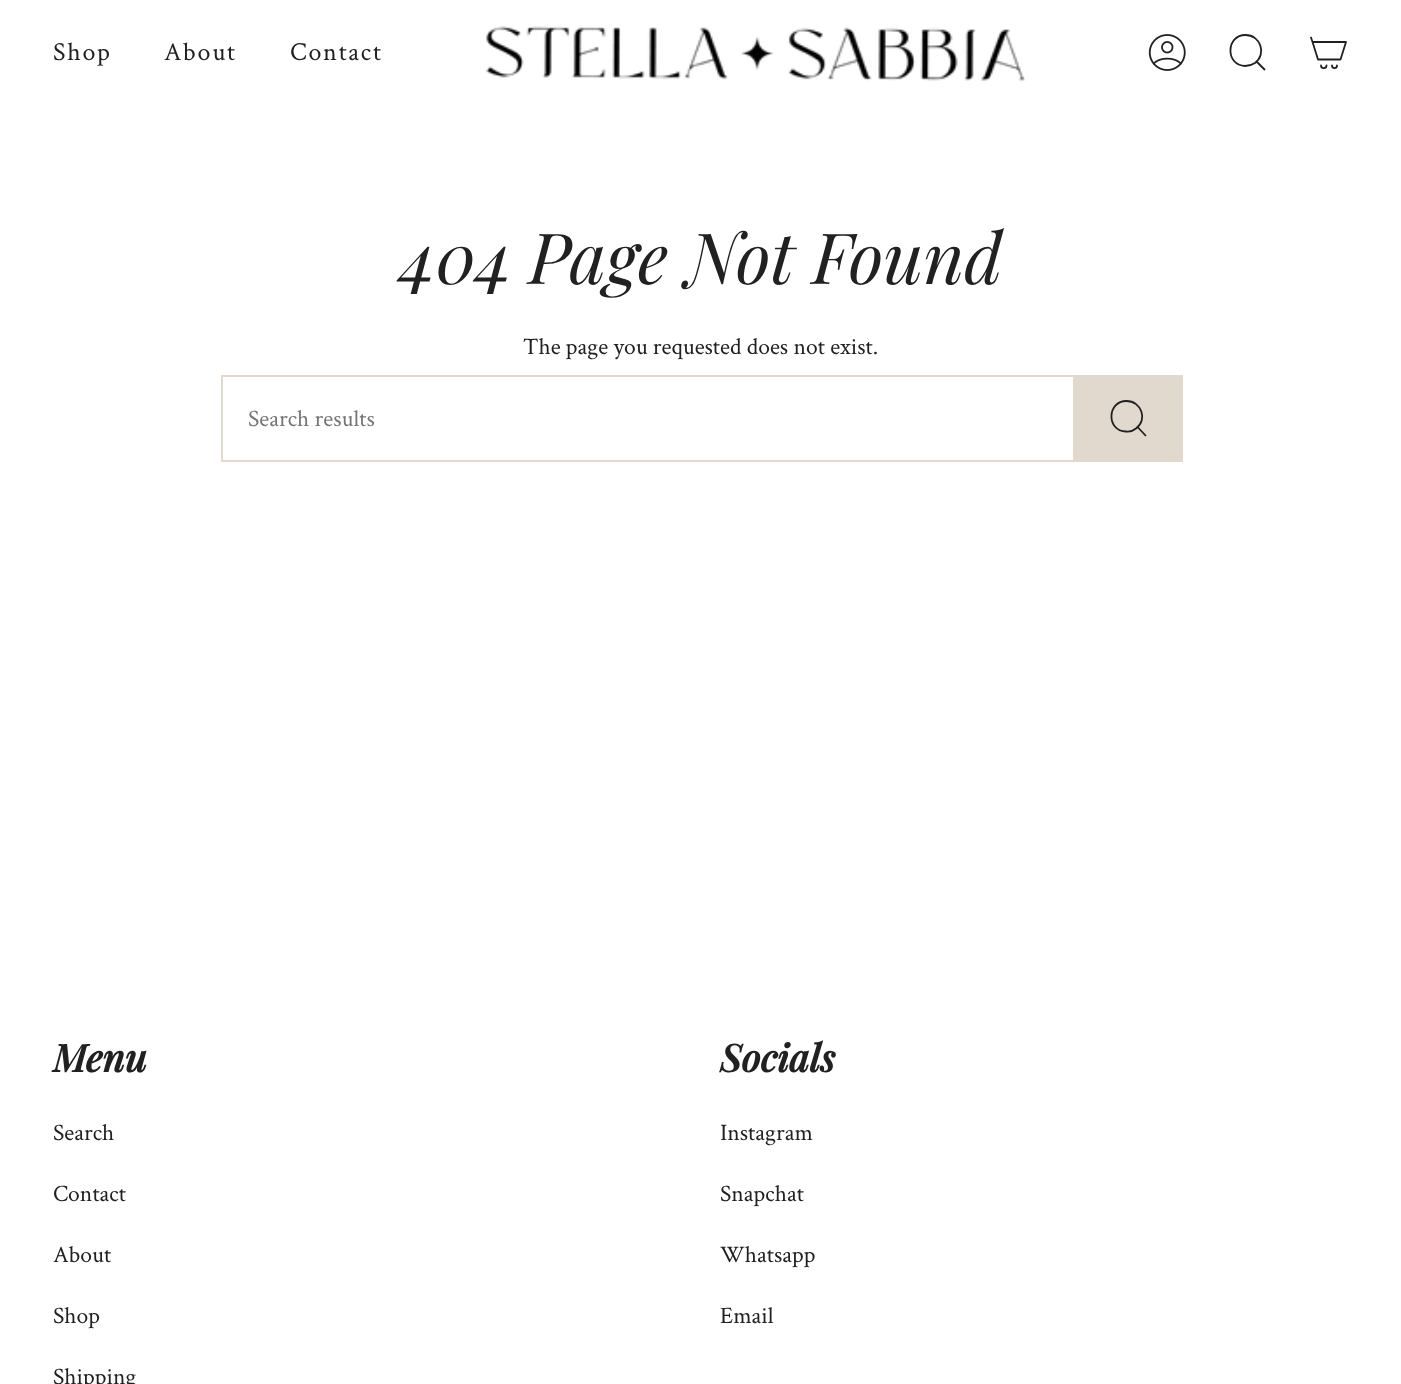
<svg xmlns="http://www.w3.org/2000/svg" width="1401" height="1384">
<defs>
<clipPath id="clip1"><rect x="249" y="403" width="691" height="31"/></clipPath>
</defs>
<rect width="100%" height="100%" fill="#fff"/>
<text x="53" y="60" style="font-family:Crimson Text;font-size:26px;letter-spacing:1.75px;fill:#212121">Shop</text>
<text x="164" y="60" style="font-family:Crimson Text;font-size:26px;letter-spacing:1.75px;fill:#212121">About</text>
<text x="290" y="60" style="font-family:Crimson Text;font-size:26px;letter-spacing:1.75px;fill:#212121">Contact</text>
<image x="486" y="26" width="540" height="55" href="media/1.png"/>
<image x="1148" y="34" width="38" height="37" href="media/2.png"/>
<path d="M1245.5 35c15 0 21.5 19 9.5 28c-3 2-6.5 3-10 3c-20-1-19-31 .5-31zm11 26.5l8.5 8.5" fill="none" stroke="#212121" stroke-width="1.8"/>
<path d="M1312.5 42h33.5l-5.5 17.5h-22.5zm0 0l-1.5-4.5m15.5 28c0 3.5-5.5 3.5-5.5 0m16 0c0 3.5-5 3.5-5 0" fill="none" stroke="#212121" stroke-width="1.8" stroke-linecap="round" stroke-linejoin="round"/>
<text x="400" y="284" style="font-family:Playfair Display;font-size:70.5px;font-style:italic;fill:#212121">404 Page Not Found</text>
<text x="523" y="354" style="font-family:Crimson Text;font-size:23.6px;fill:#212121">The page you requested does not exist.</text>
<rect x="222" y="376" width="852" height="85" fill="none" stroke="#e1d8ce" stroke-width="2"/>
<g clip-path="url(#clip1)">
<text x="248" y="426" style="font-family:Crimson Text;font-size:23.6px;fill:#757575">Search results</text>
</g>
<rect x="1075" y="375" width="108" height="87" fill="#e1d8ce"/>
<path d="M1126.5 401c15 0 21.5 19 9.5 27.5c-3 2.5-6.5 3.5-10 3c-20-.5-19-30.5 .5-30.5zm11 26l8.5 9" fill="none" stroke="#212121" stroke-width="1.8"/>
<text x="53" y="1072" style="font-family:Playfair Display;font-size:38px;font-weight:bold;font-style:italic;fill:#212121">Menu</text>
<text x="53" y="1140" style="font-family:Crimson Text;font-size:23.6px;fill:#212121">Search</text>
<text x="53" y="1201" style="font-family:Crimson Text;font-size:23.6px;fill:#212121">Contact</text>
<text x="53" y="1262" style="font-family:Crimson Text;font-size:23.6px;fill:#212121">About</text>
<text x="53" y="1323" style="font-family:Crimson Text;font-size:23.6px;fill:#212121">Shop</text>
<text x="53" y="1384" style="font-family:Crimson Text;font-size:23.6px;fill:#212121">Shipping</text>
<text x="720" y="1072" style="font-family:Playfair Display;font-size:38px;font-weight:bold;font-style:italic;fill:#212121">Socials</text>
<text x="720" y="1140" style="font-family:Crimson Text;font-size:23.6px;fill:#212121">Instagram</text>
<text x="720" y="1201" style="font-family:Crimson Text;font-size:23.6px;fill:#212121">Snapchat</text>
<text x="720" y="1262" style="font-family:Crimson Text;font-size:23.6px;fill:#212121">Whatsapp</text>
<text x="720" y="1323" style="font-family:Crimson Text;font-size:23.6px;fill:#212121">Email</text>
</svg>
